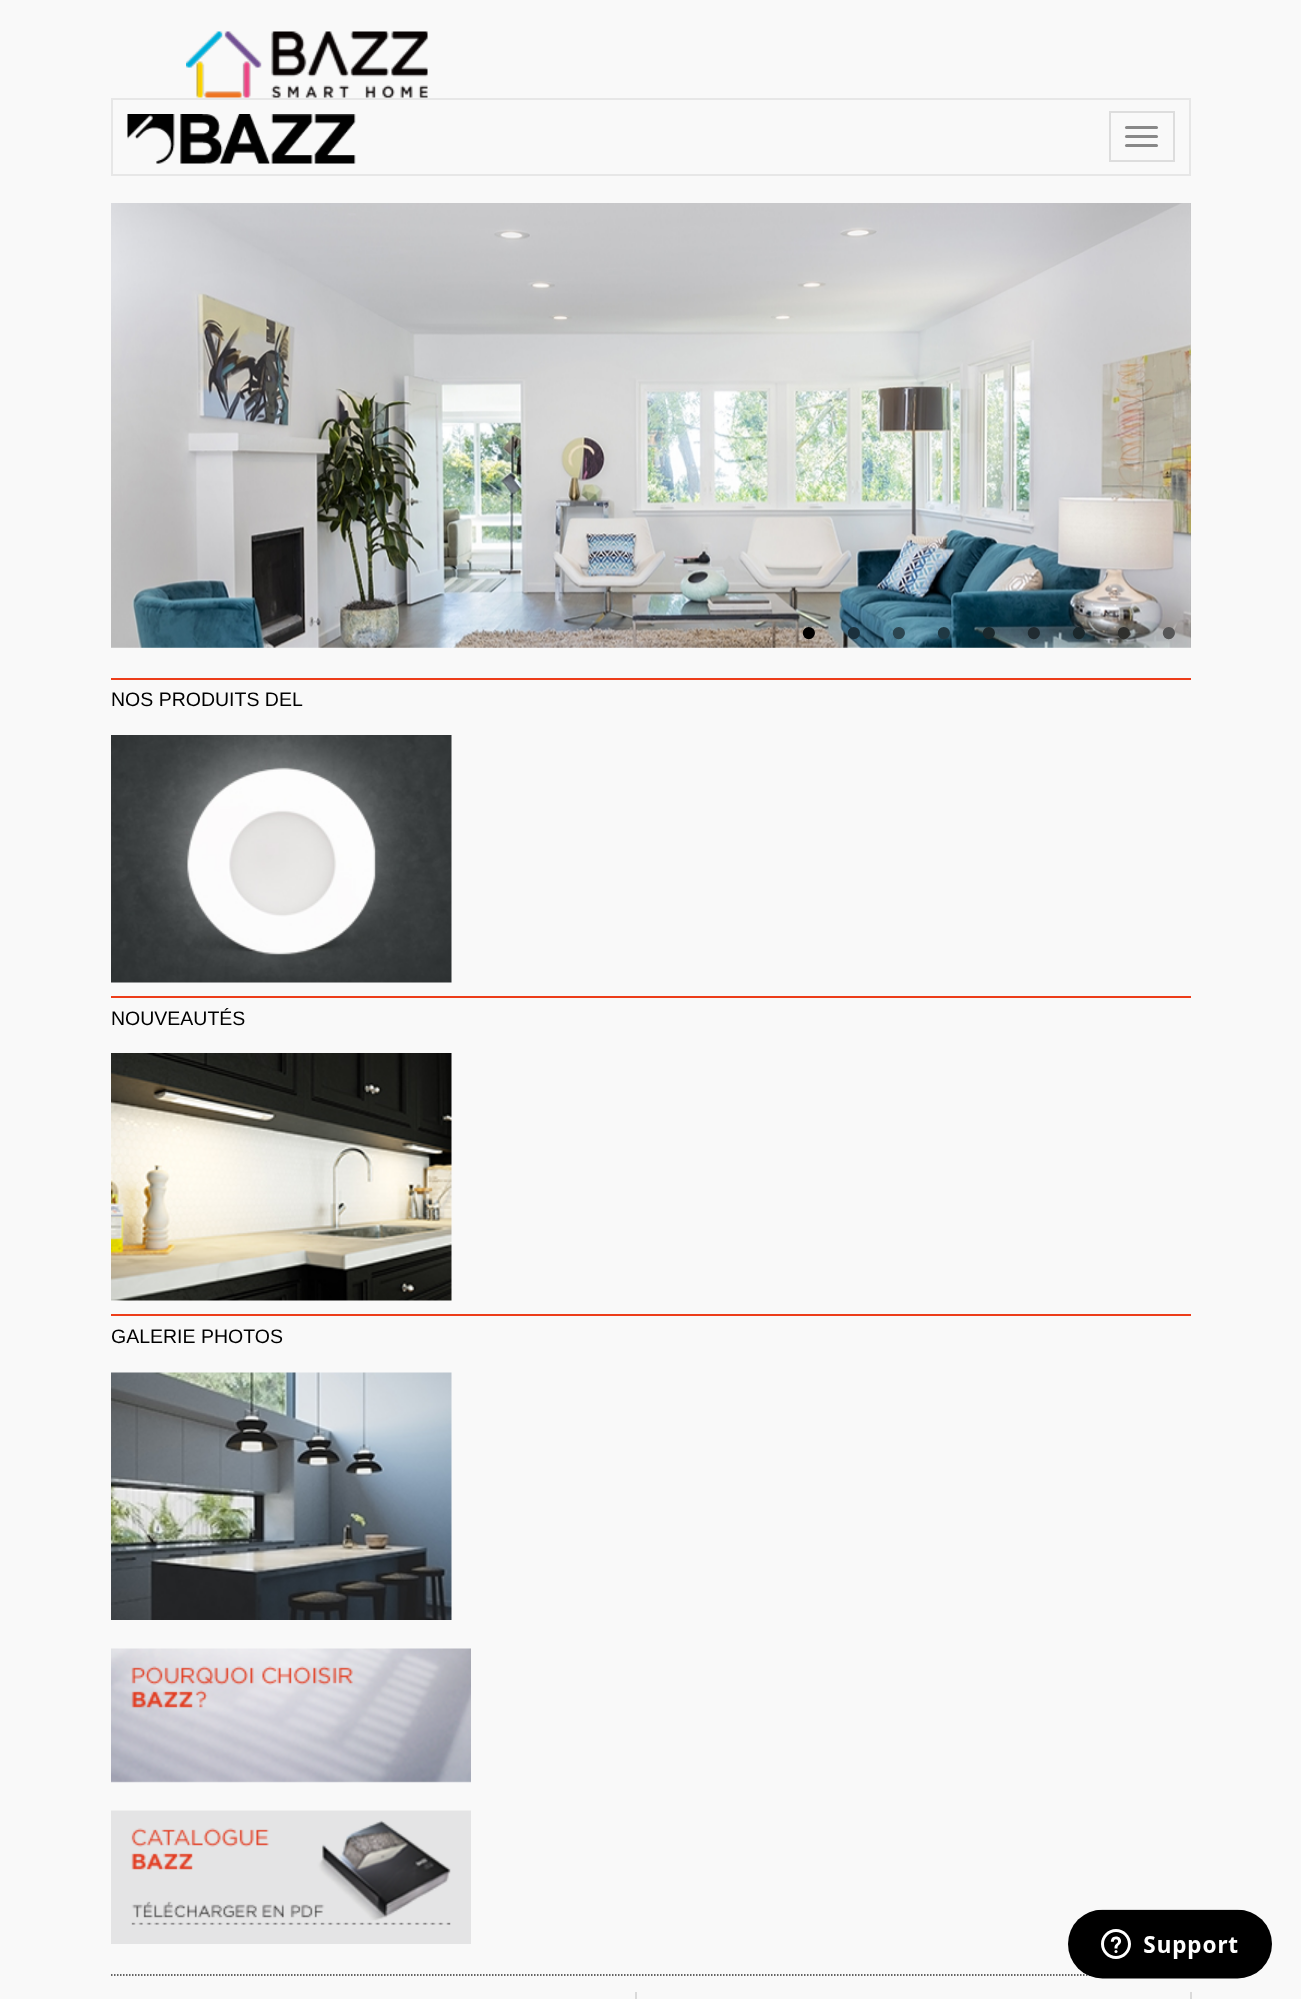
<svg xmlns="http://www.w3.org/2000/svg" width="1301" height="1999">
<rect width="100%" height="100%" fill="#f9f9f9"/>
<image x="186" y="31" width="242" height="67" href="media/1.png"/>
<rect x="112" y="99" width="1078" height="76" fill="none" stroke="#e7e7e7" stroke-width="2"/>
<image x="127" y="114" width="229" height="50" href="media/2.png"/>
<rect x="1110" y="112" width="64" height="49" fill="none" stroke="#ddd" stroke-width="2"/>
<rect x="1125" y="126" width="33" height="3" rx="1.5" fill="#888"/>
<rect x="1125" y="135" width="33" height="3" rx="1.5" fill="#888"/>
<rect x="1125" y="144" width="33" height="3" rx="1.5" fill="#888"/>
<image x="111" y="203" width="1080" height="445" href="media/3.png"/>
<text x="801" y="648" style="font-family:Liberation Sans;font-size:45px;fill:#000">•</text>
<text x="846" y="648" style="font-family:Liberation Sans;font-size:45px;fill:#1b303c">•</text>
<text x="891" y="648" style="font-family:Liberation Sans;font-size:45px;fill:#2b4550">•</text>
<text x="936" y="648" style="font-family:Liberation Sans;font-size:45px;fill:#1f3843">•</text>
<text x="981" y="648" style="font-family:Liberation Sans;font-size:45px;fill:#1b282c">•</text>
<text x="1026" y="648" style="font-family:Liberation Sans;font-size:45px;fill:#212b31">•</text>
<text x="1071" y="648" style="font-family:Liberation Sans;font-size:45px;fill:#1b282c">•</text>
<text x="1116" y="648" style="font-family:Liberation Sans;font-size:45px;fill:#2f2f2d">•</text>
<text x="1161" y="648" style="font-family:Liberation Sans;font-size:45px;fill:#565657">•</text>
<rect x="111" y="678" width="1080" height="2" fill="#ed3d1a"/>
<text x="111" y="706" style="font-family:Liberation Sans;font-size:19.5px;fill:#000">NOS PRODUITS DEL</text>
<image x="111" y="735" width="341" height="248" href="media/4.png"/>
<rect x="111" y="996" width="1080" height="2" fill="#ed3d1a"/>
<text x="111" y="1025" style="font-family:Liberation Sans;font-size:19.5px;fill:#000">NOUVEAUTÉS</text>
<image x="111" y="1053" width="341" height="248" href="media/5.png"/>
<rect x="111" y="1314" width="1080" height="2" fill="#ed3d1a"/>
<text x="111" y="1343" style="font-family:Liberation Sans;font-size:19.5px;fill:#000">GALERIE PHOTOS</text>
<image x="111" y="1372" width="341" height="248" href="media/6.png"/>
<image x="111" y="1648" width="360" height="135" href="media/7.png"/>
<image x="111" y="1810" width="360" height="134" href="media/8.png"/>
<path d="M111 1975h1080" fill="none" stroke="#333" stroke-width="1.5" stroke-dasharray="1.5 1.5"/>
<rect x="635" y="1992" width="2" height="7" fill="#dadada"/>
<rect x="1190" y="1992" width="2" height="7" fill="#dadada"/>
<image x="1068" y="1909" width="204" height="70" href="media/9.png"/>
</svg>
